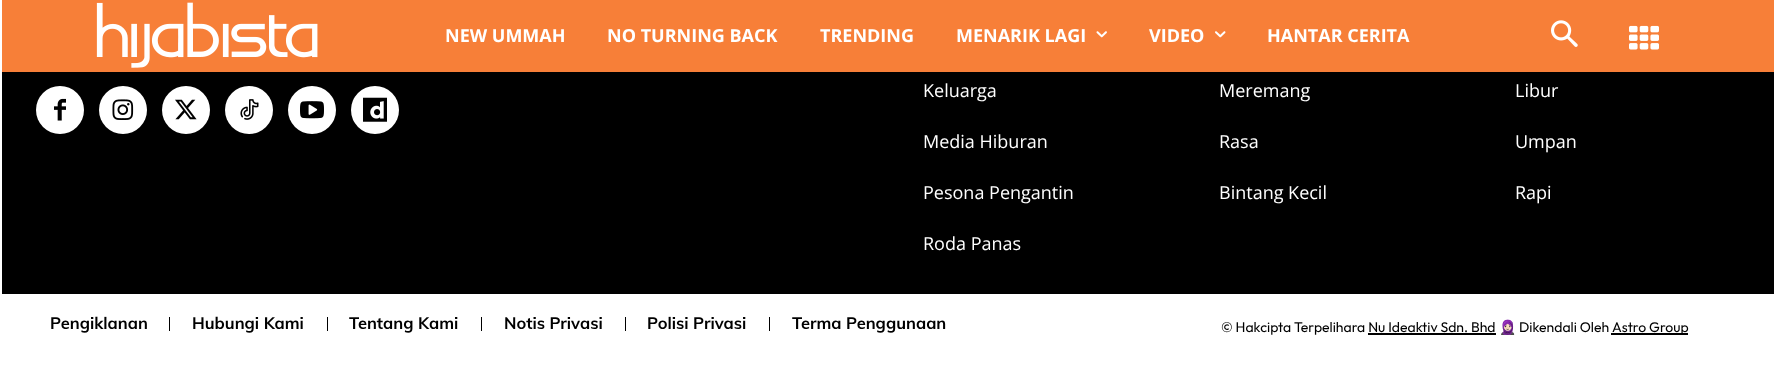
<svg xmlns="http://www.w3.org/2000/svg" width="1774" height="367">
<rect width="100%" height="100%" fill="#fff"/>
<rect x="2" width="1772" height="72" fill="#f77f38"/>
<image x="96" y="2" width="222" height="66" href="media/1.png"/>
<text x="445" y="42" style="font-family:Open Sans;font-size:18px;font-weight:bold;fill:#fff">NEW UMMAH</text>
<text x="607" y="42" style="font-family:Open Sans;font-size:18px;font-weight:bold;fill:#fff">NO TURNING BACK</text>
<text x="820" y="42" style="font-family:Open Sans;font-size:18px;font-weight:bold;fill:#fff">TRENDING</text>
<text x="956" y="42" style="font-family:Open Sans;font-size:18px;font-weight:bold;fill:#fff">MENARIK LAGI</text>
<image x="1096" y="31" width="11" height="7" href="media/2.png"/>
<text x="1149" y="42" style="font-family:Open Sans;font-size:18px;font-weight:bold;fill:#fff">VIDEO</text>
<image x="1215" y="31" width="11" height="7" href="media/3.png"/>
<text x="1267" y="42" style="font-family:Open Sans;font-size:18px;font-weight:bold;fill:#fff">HANTAR CERITA</text>
<image x="1551" y="20" width="27" height="27" href="media/4.png"/>
<image x="1629" y="25" width="30" height="25" href="media/5.png"/>
<rect x="2" y="72" width="1772" height="222" fill="#000"/>
<circle cx="60" cy="110" r="24" fill="#fff"/>
<image x="54" y="98" width="12" height="23" href="media/6.png"/>
<circle cx="123" cy="110" r="24" fill="#fff"/>
<image x="112" y="99" width="22" height="21" href="media/7.png"/>
<circle cx="186" cy="110" r="24" fill="#fff"/>
<image x="175" y="99" width="22" height="21" href="media/8.png"/>
<circle cx="249" cy="110" r="24" fill="#fff"/>
<image x="240" y="99" width="19" height="21" href="media/9.png"/>
<circle cx="312" cy="110" r="24" fill="#fff"/>
<image x="300" y="101" width="24" height="18" href="media/10.png"/>
<circle cx="375" cy="110" r="24" fill="#fff"/>
<image x="363" y="97" width="24" height="25" href="media/11.png"/>
<text x="923" y="97" style="font-family:Open Sans;font-size:18px;fill:#fff">Keluarga</text>
<text x="923" y="148" style="font-family:Open Sans;font-size:18px;fill:#fff">Media Hiburan</text>
<text x="923" y="199" style="font-family:Open Sans;font-size:18px;fill:#fff">Pesona Pengantin</text>
<text x="923" y="250" style="font-family:Open Sans;font-size:18px;fill:#fff">Roda Panas</text>
<text x="1219" y="97" style="font-family:Open Sans;font-size:18px;fill:#fff">Meremang</text>
<text x="1219" y="148" style="font-family:Open Sans;font-size:18px;fill:#fff">Rasa</text>
<text x="1219" y="199" style="font-family:Open Sans;font-size:18px;fill:#fff">Bintang Kecil</text>
<text x="1515" y="97" style="font-family:Open Sans;font-size:18px;fill:#fff">Libur</text>
<text x="1515" y="148" style="font-family:Open Sans;font-size:18px;fill:#fff">Umpan</text>
<text x="1515" y="199" style="font-family:Open Sans;font-size:18px;fill:#fff">Rapi</text>
<text x="50" y="329" style="font-family:Muli;font-size:16.5px;font-weight:bold;fill:#000">Pengiklanan</text>
<rect x="169" y="317" width="1" height="14" fill="#000"/>
<text x="192" y="329" style="font-family:Muli;font-size:16.5px;font-weight:bold;fill:#000">Hubungi Kami</text>
<rect x="327" y="317" width="1" height="14" fill="#000"/>
<text x="349" y="329" style="font-family:Muli;font-size:16.5px;font-weight:bold;fill:#000">Tentang Kami</text>
<rect x="481" y="317" width="1" height="14" fill="#000"/>
<text x="504" y="329" style="font-family:Muli;font-size:16.5px;font-weight:bold;fill:#000">Notis Privasi</text>
<rect x="625" y="317" width="1" height="14" fill="#000"/>
<text x="647" y="329" style="font-family:Muli;font-size:16.5px;font-weight:bold;fill:#000">Polisi Privasi</text>
<rect x="769" y="317" width="1" height="14" fill="#000"/>
<text x="792" y="329" style="font-family:Muli;font-size:16.5px;font-weight:bold;fill:#000">Terma Penggunaan</text>
<text x="1221" y="332" style="font-family:Outfit;font-size:14px;fill:#000">© Hakcipta Terpelihara Nu Ideaktiv Sdn. Bhd</text>
<rect x="1368" y="333" width="128" height="2" fill="#000"/>
<text x="1499" y="332" style="font-family:Noto Color Emoji;font-size:14px;fill:#000">🧕🏻</text>
<text x="1519" y="332" style="font-family:Outfit;font-size:14px;fill:#000">Dikendali Oleh</text>
<rect x="1611" y="333" width="77" height="2" fill="#000"/>
<text x="1612" y="332" style="font-family:Outfit;font-size:14px;fill:#000">Astro Group</text>
</svg>
